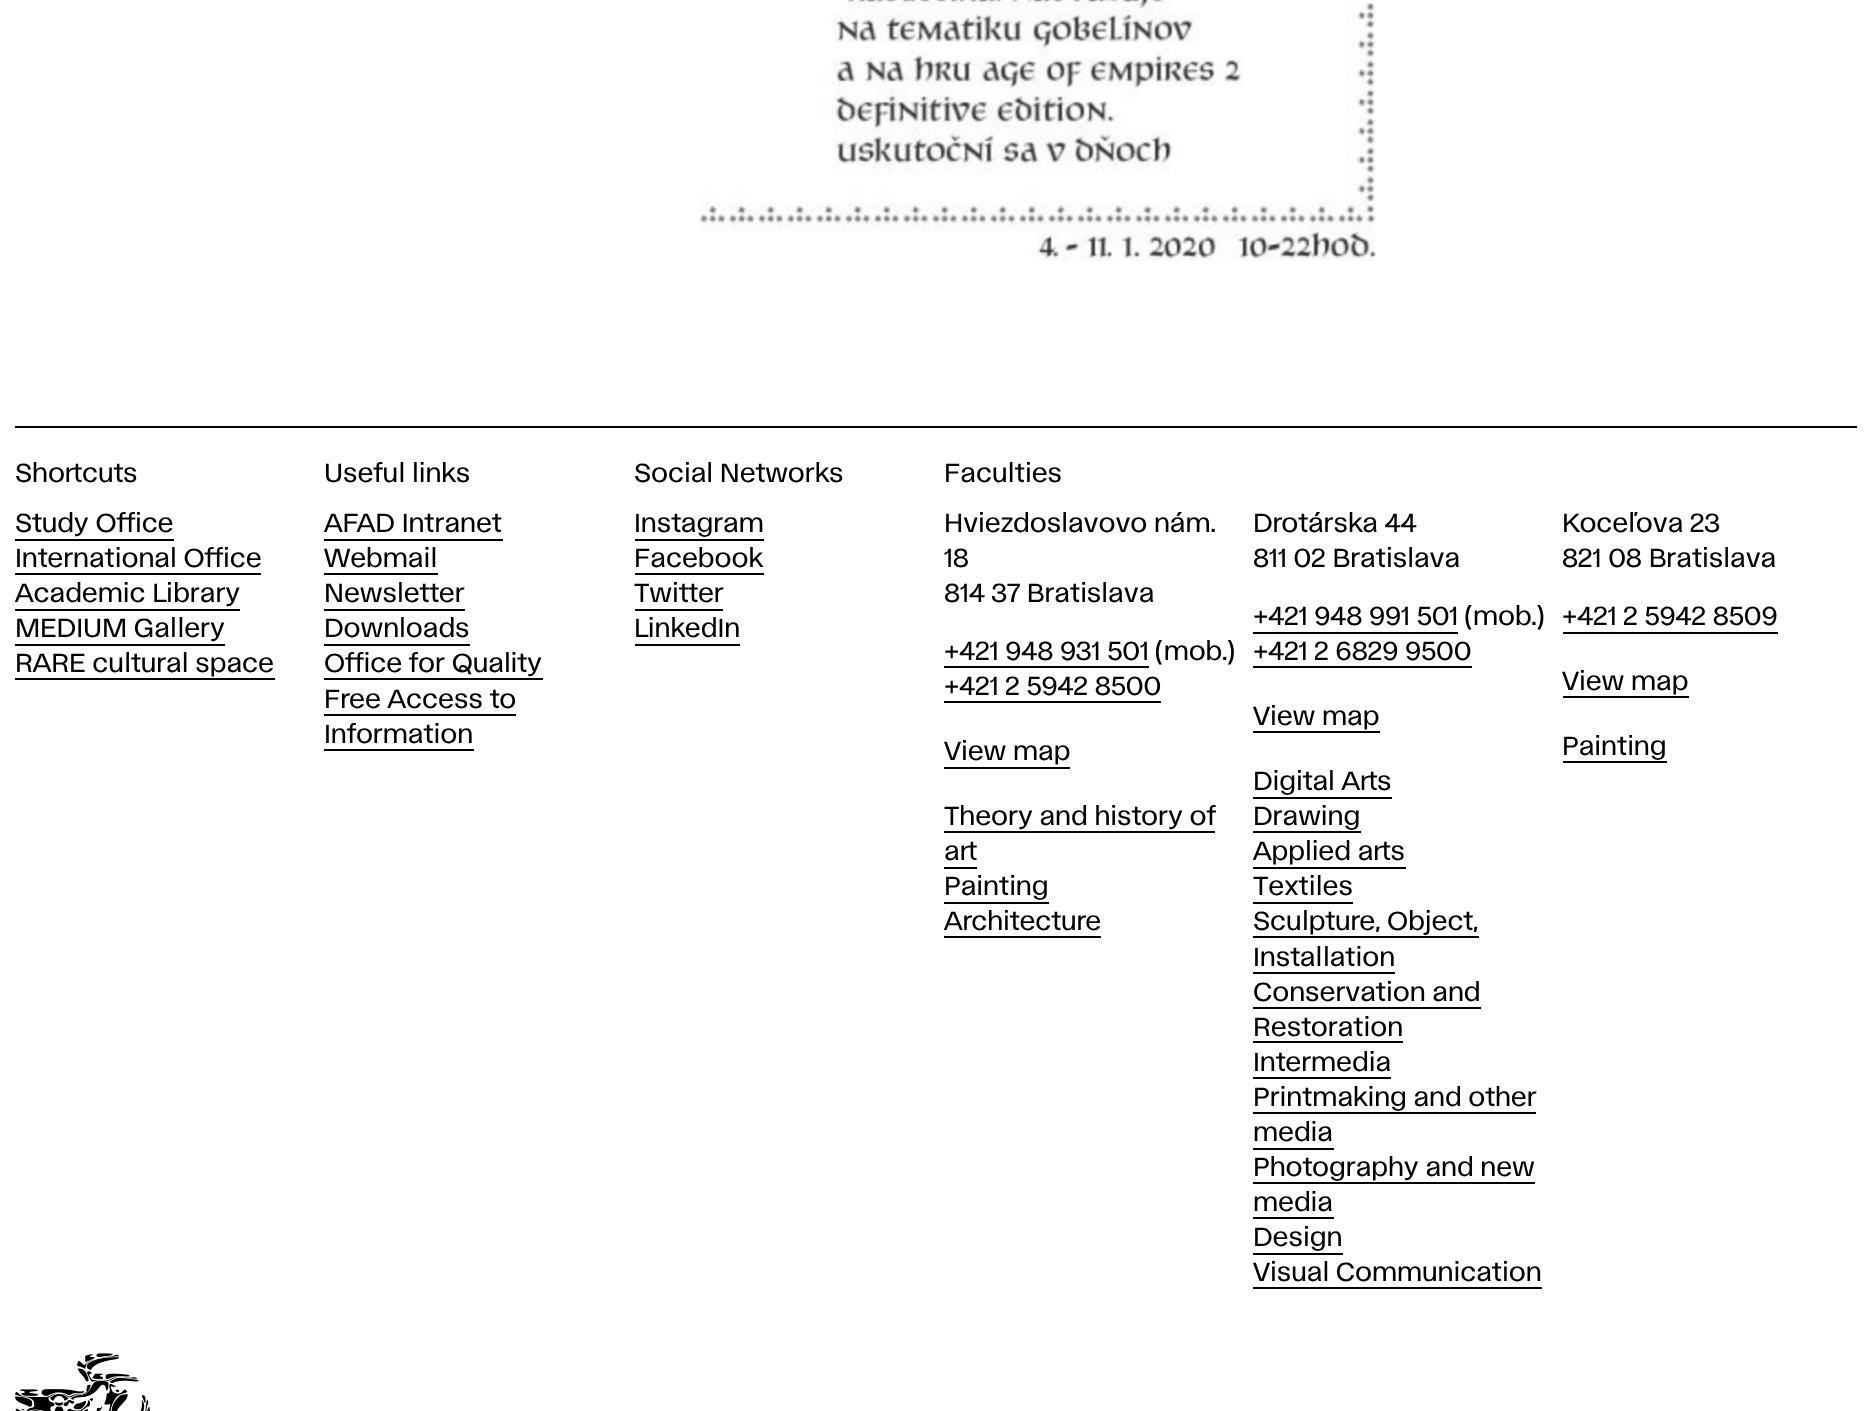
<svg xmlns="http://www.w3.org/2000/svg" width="1872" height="1411">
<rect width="100%" height="100%" fill="#fff"/>
<image x="698" y="0" width="678" height="261" href="media/1.png"/>
<rect x="15" y="426" width="1842" height="2" fill="#000"/>
<text x="15" y="482" style="font-family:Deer;font-size:19.5px;fill:#000">Shortcuts</text>
<text x="15" y="532" style="font-family:Deer;font-size:19.5px;fill:#000">Study Office</text>
<rect x="15" y="539" width="159" height="2" fill="#000"/>
<text x="15" y="567" style="font-family:Deer;font-size:19.5px;fill:#000">International Office</text>
<rect x="15" y="573" width="246" height="2" fill="#000"/>
<text x="15" y="602" style="font-family:Deer;font-size:19.5px;fill:#000">Academic Library</text>
<rect x="15" y="609" width="225" height="2" fill="#000"/>
<text x="15" y="637" style="font-family:Deer;font-size:19.5px;fill:#000">MEDIUM Gallery</text>
<rect x="15" y="644" width="210" height="2" fill="#000"/>
<text x="15" y="672" style="font-family:Deer;font-size:19.5px;fill:#000">RARE cultural space</text>
<rect x="15" y="678" width="260" height="2" fill="#000"/>
<text x="324" y="482" style="font-family:Deer;font-size:19.5px;fill:#000">Useful links</text>
<text x="324" y="532" style="font-family:Deer;font-size:19.5px;fill:#000">AFAD Intranet</text>
<rect x="324" y="539" width="179" height="2" fill="#000"/>
<text x="324" y="567" style="font-family:Deer;font-size:19.5px;fill:#000">Webmail</text>
<rect x="324" y="573" width="114" height="2" fill="#000"/>
<text x="324" y="602" style="font-family:Deer;font-size:19.5px;fill:#000">Newsletter</text>
<rect x="324" y="609" width="141" height="2" fill="#000"/>
<text x="324" y="637" style="font-family:Deer;font-size:19.5px;fill:#000">Downloads</text>
<rect x="324" y="644" width="146" height="2" fill="#000"/>
<text x="324" y="672" style="font-family:Deer;font-size:19.5px;fill:#000">Office for Quality</text>
<rect x="324" y="678" width="219" height="2" fill="#000"/>
<text x="324" y="708" style="font-family:Deer;font-size:19.5px;fill:#000">Free Access to</text>
<rect x="324" y="714" width="192" height="2" fill="#000"/>
<text x="324" y="743" style="font-family:Deer;font-size:19.5px;fill:#000">Information</text>
<rect x="324" y="749" width="150" height="2" fill="#000"/>
<text x="634" y="482" style="font-family:Deer;font-size:19.5px;fill:#000">Social Networks</text>
<text x="634" y="532" style="font-family:Deer;font-size:19.5px;fill:#000">Instagram</text>
<rect x="635" y="539" width="129" height="2" fill="#000"/>
<text x="634" y="567" style="font-family:Deer;font-size:19.5px;fill:#000">Facebook</text>
<rect x="635" y="573" width="129" height="2" fill="#000"/>
<text x="634" y="602" style="font-family:Deer;font-size:19.5px;fill:#000">Twitter</text>
<rect x="635" y="609" width="88" height="2" fill="#000"/>
<text x="634" y="637" style="font-family:Deer;font-size:19.5px;fill:#000">LinkedIn</text>
<rect x="635" y="644" width="105" height="2" fill="#000"/>
<text x="944" y="482" style="font-family:Deer;font-size:19.5px;fill:#000">Faculties</text>
<text x="944" y="532" style="font-family:Deer;font-size:19.5px;fill:#000">Hviezdoslavovo nám.</text>
<text x="944" y="567" style="font-family:Deer;font-size:19.5px;fill:#000">18</text>
<text x="944" y="602" style="font-family:Deer;font-size:19.5px;fill:#000">814 37 Bratislava</text>
<text x="944" y="660" style="font-family:Deer;font-size:19.5px;fill:#000">+421 948 931 501 (mob.)</text>
<rect x="944" y="666" width="205" height="2" fill="#000"/>
<text x="944" y="695" style="font-family:Deer;font-size:19.5px;fill:#000">+421 2 5942 8500</text>
<rect x="944" y="701" width="217" height="2" fill="#000"/>
<text x="944" y="760" style="font-family:Deer;font-size:19.5px;fill:#000">View map</text>
<rect x="944" y="767" width="126" height="2" fill="#000"/>
<text x="944" y="825" style="font-family:Deer;font-size:19.5px;fill:#000">Theory and history of</text>
<rect x="944" y="831" width="271" height="2" fill="#000"/>
<text x="944" y="860" style="font-family:Deer;font-size:19.5px;fill:#000">art</text>
<rect x="944" y="867" width="33" height="2" fill="#000"/>
<text x="944" y="895" style="font-family:Deer;font-size:19.5px;fill:#000">Painting</text>
<rect x="944" y="902" width="105" height="2" fill="#000"/>
<text x="944" y="930" style="font-family:Deer;font-size:19.5px;fill:#000">Architecture</text>
<rect x="944" y="936" width="157" height="2" fill="#000"/>
<text x="1253" y="532" style="font-family:Deer;font-size:19.5px;fill:#000">Drotárska 44</text>
<text x="1253" y="567" style="font-family:Deer;font-size:19.5px;fill:#000">811 02 Bratislava</text>
<text x="1253" y="625" style="font-family:Deer;font-size:19.5px;fill:#000">+421 948 991 501 (mob.)</text>
<rect x="1253" y="632" width="205" height="2" fill="#000"/>
<text x="1253" y="660" style="font-family:Deer;font-size:19.5px;fill:#000">+421 2 6829 9500</text>
<rect x="1253" y="666" width="219" height="2" fill="#000"/>
<text x="1253" y="725" style="font-family:Deer;font-size:19.5px;fill:#000">View map</text>
<rect x="1253" y="731" width="127" height="2" fill="#000"/>
<text x="1253" y="790" style="font-family:Deer;font-size:19.5px;fill:#000">Digital Arts</text>
<rect x="1253" y="797" width="139" height="2" fill="#000"/>
<text x="1253" y="825" style="font-family:Deer;font-size:19.5px;fill:#000">Drawing</text>
<rect x="1253" y="831" width="108" height="2" fill="#000"/>
<text x="1253" y="860" style="font-family:Deer;font-size:19.5px;fill:#000">Applied arts</text>
<rect x="1253" y="867" width="153" height="2" fill="#000"/>
<text x="1253" y="895" style="font-family:Deer;font-size:19.5px;fill:#000">Textiles</text>
<rect x="1253" y="902" width="100" height="2" fill="#000"/>
<text x="1253" y="930" style="font-family:Deer;font-size:19.5px;fill:#000">Sculpture, Object,</text>
<rect x="1253" y="936" width="226" height="2" fill="#000"/>
<text x="1253" y="966" style="font-family:Deer;font-size:19.5px;fill:#000">Installation</text>
<rect x="1253" y="972" width="142" height="2" fill="#000"/>
<text x="1253" y="1001" style="font-family:Deer;font-size:19.5px;fill:#000">Conservation and</text>
<rect x="1253" y="1007" width="228" height="2" fill="#000"/>
<text x="1253" y="1036" style="font-family:Deer;font-size:19.5px;fill:#000">Restoration</text>
<rect x="1253" y="1041" width="150" height="2" fill="#000"/>
<text x="1253" y="1071" style="font-family:Deer;font-size:19.5px;fill:#000">Intermedia</text>
<rect x="1253" y="1077" width="138" height="2" fill="#000"/>
<text x="1253" y="1106" style="font-family:Deer;font-size:19.5px;fill:#000">Printmaking and other</text>
<rect x="1253" y="1112" width="283" height="2" fill="#000"/>
<text x="1253" y="1141" style="font-family:Deer;font-size:19.5px;fill:#000">media</text>
<rect x="1253" y="1148" width="81" height="2" fill="#000"/>
<text x="1253" y="1176" style="font-family:Deer;font-size:19.5px;fill:#000">Photography and new</text>
<rect x="1253" y="1182" width="282" height="2" fill="#000"/>
<text x="1253" y="1211" style="font-family:Deer;font-size:19.5px;fill:#000">media</text>
<rect x="1253" y="1217" width="81" height="2" fill="#000"/>
<text x="1253" y="1246" style="font-family:Deer;font-size:19.5px;fill:#000">Design</text>
<rect x="1253" y="1253" width="90" height="2" fill="#000"/>
<text x="1253" y="1281" style="font-family:Deer;font-size:19.5px;fill:#000">Visual Communication</text>
<rect x="1253" y="1287" width="289" height="2" fill="#000"/>
<text x="1562" y="532" style="font-family:Deer;font-size:19.5px;fill:#000">Koceľova 23</text>
<text x="1562" y="567" style="font-family:Deer;font-size:19.5px;fill:#000">821 08 Bratislava</text>
<text x="1562" y="625" style="font-family:Deer;font-size:19.5px;fill:#000">+421 2 5942 8509</text>
<rect x="1563" y="632" width="215" height="2" fill="#000"/>
<text x="1562" y="690" style="font-family:Deer;font-size:19.5px;fill:#000">View map</text>
<rect x="1563" y="696" width="126" height="2" fill="#000"/>
<text x="1562" y="755" style="font-family:Deer;font-size:19.5px;fill:#000">Painting</text>
<rect x="1563" y="761" width="104" height="2" fill="#000"/>
<image x="15" y="1353" width="135" height="58" href="media/2.png"/>
</svg>
